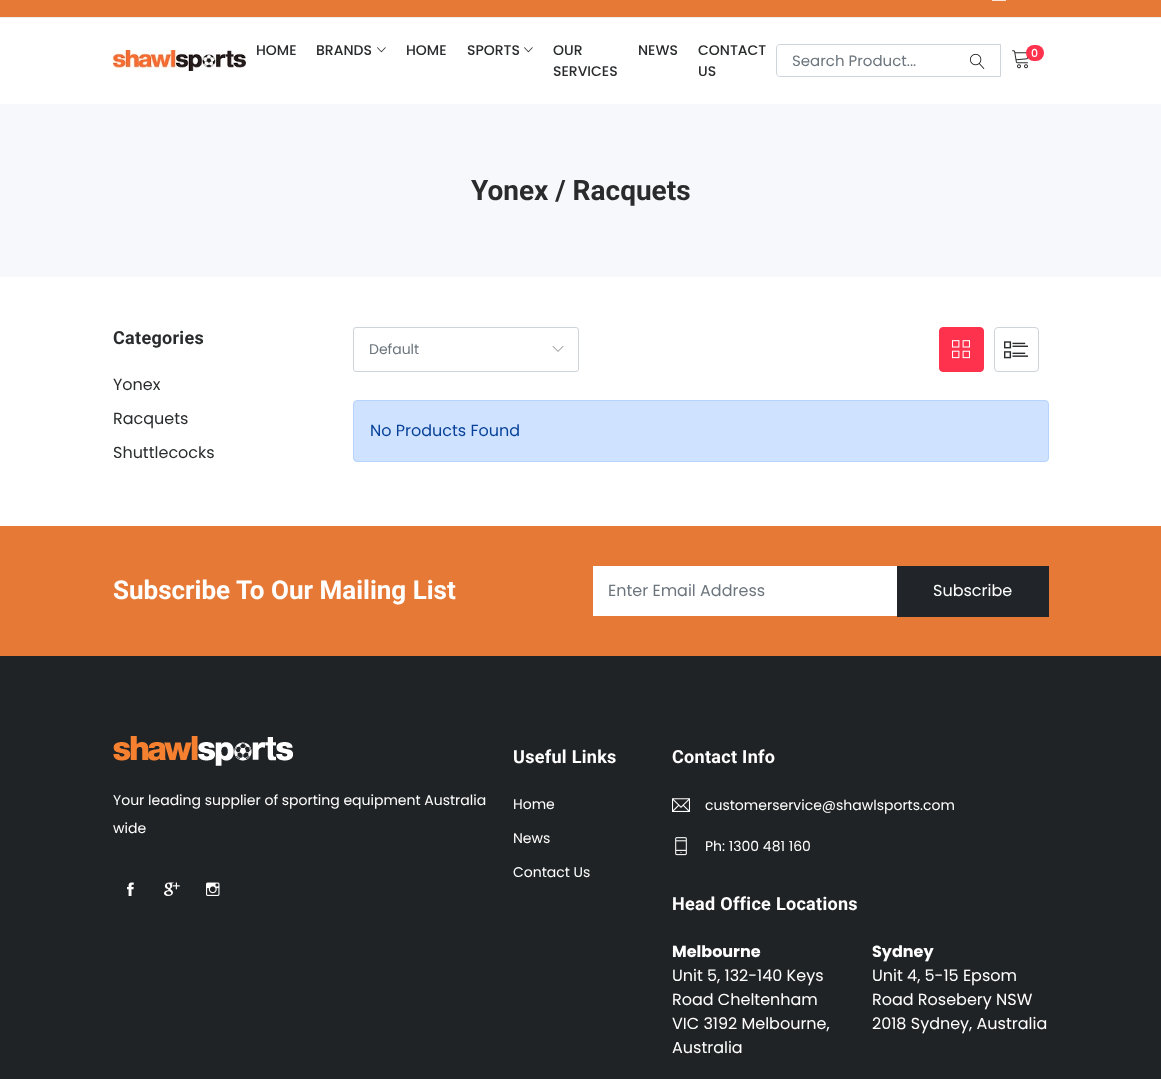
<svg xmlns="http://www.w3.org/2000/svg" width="1161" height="1079">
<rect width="100%" height="100%" fill="#fff"/>
<rect width="1161" height="17" fill="#e77937"/>
<rect y="17" width="1161" height="1" fill="#eee"/>
<image x="992" y="0" width="14" height="1" href="media/1.png"/>
<image x="113" y="50" width="133" height="21" href="media/2.png"/>
<text x="256" y="55" style="font-family:Poppins;font-size:14px;font-weight:500;fill:#292b2c">HOME</text>
<text x="316" y="55" style="font-family:Poppins;font-size:14px;font-weight:500;fill:#292b2c">BRANDS</text>
<image x="377" y="47" width="9" height="6" href="media/3.png"/>
<text x="406" y="55" style="font-family:Poppins;font-size:14px;font-weight:500;fill:#292b2c">HOME</text>
<text x="467" y="55" style="font-family:Poppins;font-size:14px;font-weight:500;fill:#292b2c">SPORTS</text>
<image x="524" y="47" width="9" height="6" href="media/3.png"/>
<text x="553" y="55" style="font-family:Poppins;font-size:14px;font-weight:500;fill:#292b2c">OUR</text>
<text x="553" y="76" style="font-family:Poppins;font-size:14px;font-weight:500;fill:#292b2c">SERVICES</text>
<text x="638" y="55" style="font-family:Poppins;font-size:14px;font-weight:500;fill:#292b2c">NEWS</text>
<text x="698" y="55" style="font-family:Poppins;font-size:14px;font-weight:500;fill:#292b2c">CONTACT</text>
<text x="698" y="76" style="font-family:Poppins;font-size:14px;font-weight:500;fill:#292b2c">US</text>
<image x="1012" y="50" width="16" height="19" href="media/4.png"/>
<rect x="1026" y="45" width="18" height="16" rx="8" fill="#ff324d"/>
<text x="1031" y="57" style="font-family:Poppins;font-size:11px;font-weight:500;fill:#fff">0</text>
<path d="M780 44.5h220.5v32h-220.5c-2 0-3.5-1.5-3.5-3.5v-25c0-2 1.5-3.5 3.5-3.5z" fill="none" stroke="#ced4da"/>
<text x="792" y="66" style="font-family:Poppins;font-size:15px;fill:#6c757d">Search Product...</text>
<image x="970" y="53" width="15" height="16" href="media/5.png"/>
<rect y="104" width="1161" height="173" fill="#f7f8fb"/>
<text x="471" y="200" style="font-family:Roboto;font-size:28px;font-weight:bold;fill:#292b2c">Yonex / Racquets</text>
<text x="113" y="344" style="font-family:Roboto;font-size:18px;font-weight:bold;letter-spacing:0.3px;fill:#292b2c">Categories</text>
<text x="113" y="390" style="font-family:Poppins;font-size:16px;fill:#292b2c">Yonex</text>
<text x="113" y="424" style="font-family:Poppins;font-size:16px;fill:#292b2c">Racquets</text>
<text x="113" y="458" style="font-family:Poppins;font-size:16px;fill:#292b2c">Shuttlecocks</text>
<rect x="353.5" y="327.5" width="225" height="44" rx="2.5" fill="none" stroke="#ced4da"/>
<text x="369" y="354" style="font-family:Poppins;font-size:14px;fill:#6c757d">Default</text>
<image x="552" y="346" width="12" height="6" href="media/6.png"/>
<rect x="939.5" y="327.5" width="44" height="44" rx="3.5" fill="#ff324d" stroke="#ff324d"/>
<image x="952" y="340" width="18" height="19" href="media/7.png"/>
<rect x="994.5" y="327.5" width="44" height="44" rx="3.5" fill="none" stroke="#ced4da"/>
<image x="1004" y="341" width="24" height="18" href="media/8.png"/>
<rect x="353.5" y="400.5" width="695" height="61" rx="3.5" fill="#cfe2ff" stroke="#b6d4fe"/>
<text x="370" y="436" style="font-family:Poppins;font-size:16px;fill:#084298">No Products Found</text>
<rect y="526" width="1161" height="130" fill="#e77937"/>
<text x="113" y="599" style="font-family:Roboto;font-size:26px;font-weight:bold;fill:#fff">Subscribe To Our Mailing List</text>
<rect x="593" y="566" width="304" height="50" fill="#fff"/>
<text x="608" y="596" style="font-family:Poppins;font-size:16px;fill:#6c757d">Enter Email Address</text>
<rect x="897" y="566" width="152" height="51" fill="#212529"/>
<text x="933" y="596" style="font-family:Poppins;font-size:16px;fill:#fff">Subscribe</text>
<rect y="656" width="1161" height="423" fill="#202325"/>
<image x="113" y="736" width="180" height="30" href="media/9.png"/>
<text x="113" y="805" style="font-family:Poppins;font-size:14px;fill:#fff">Your leading supplier of sporting equipment Australia</text>
<text x="113" y="833" style="font-family:Poppins;font-size:14px;fill:#fff">wide</text>
<image x="127" y="882" width="7" height="14" href="media/10.png"/>
<image x="164" y="882" width="16" height="14" href="media/11.png"/>
<image x="206" y="882" width="14" height="14" href="media/12.png"/>
<text x="513" y="763" style="font-family:Roboto;font-size:18px;font-weight:bold;letter-spacing:0.3px;fill:#fff">Useful Links</text>
<text x="513" y="809" style="font-family:Poppins;font-size:14px;fill:#fff">Home</text>
<text x="513" y="843" style="font-family:Poppins;font-size:14px;fill:#fff">News</text>
<text x="513" y="877" style="font-family:Poppins;font-size:14px;fill:#fff">Contact Us</text>
<text x="672" y="763" style="font-family:Roboto;font-size:18px;font-weight:bold;letter-spacing:0.3px;fill:#fff">Contact Info</text>
<image x="672" y="798" width="18" height="14" href="media/13.png"/>
<text x="705" y="810" style="font-family:Poppins;font-size:14px;fill:#fff">customerservice@shawlsports.com</text>
<image x="675" y="837" width="12" height="19" href="media/14.png"/>
<text x="705" y="851" style="font-family:Poppins;font-size:14px;fill:#fff">Ph: 1300 481 160</text>
<text x="672" y="910" style="font-family:Roboto;font-size:18px;font-weight:bold;letter-spacing:0.3px;fill:#fff">Head Office Locations</text>
<text x="672" y="957" style="font-family:Poppins;font-size:16px;font-weight:bold;fill:#fff">Melbourne</text>
<text x="672" y="981" style="font-family:Poppins;font-size:16px;fill:#fff">Unit 5, 132-140 Keys</text>
<text x="672" y="1005" style="font-family:Poppins;font-size:16px;fill:#fff">Road Cheltenham</text>
<text x="672" y="1029" style="font-family:Poppins;font-size:16px;fill:#fff">VIC 3192 Melbourne,</text>
<text x="672" y="1053" style="font-family:Poppins;font-size:16px;fill:#fff">Australia</text>
<text x="872" y="957" style="font-family:Poppins;font-size:16px;font-weight:bold;fill:#fff">Sydney</text>
<text x="872" y="981" style="font-family:Poppins;font-size:16px;fill:#fff">Unit 4, 5-15 Epsom</text>
<text x="872" y="1005" style="font-family:Poppins;font-size:16px;fill:#fff">Road Rosebery NSW</text>
<text x="872" y="1029" style="font-family:Poppins;font-size:16px;fill:#fff">2018 Sydney, Australia</text>
</svg>
